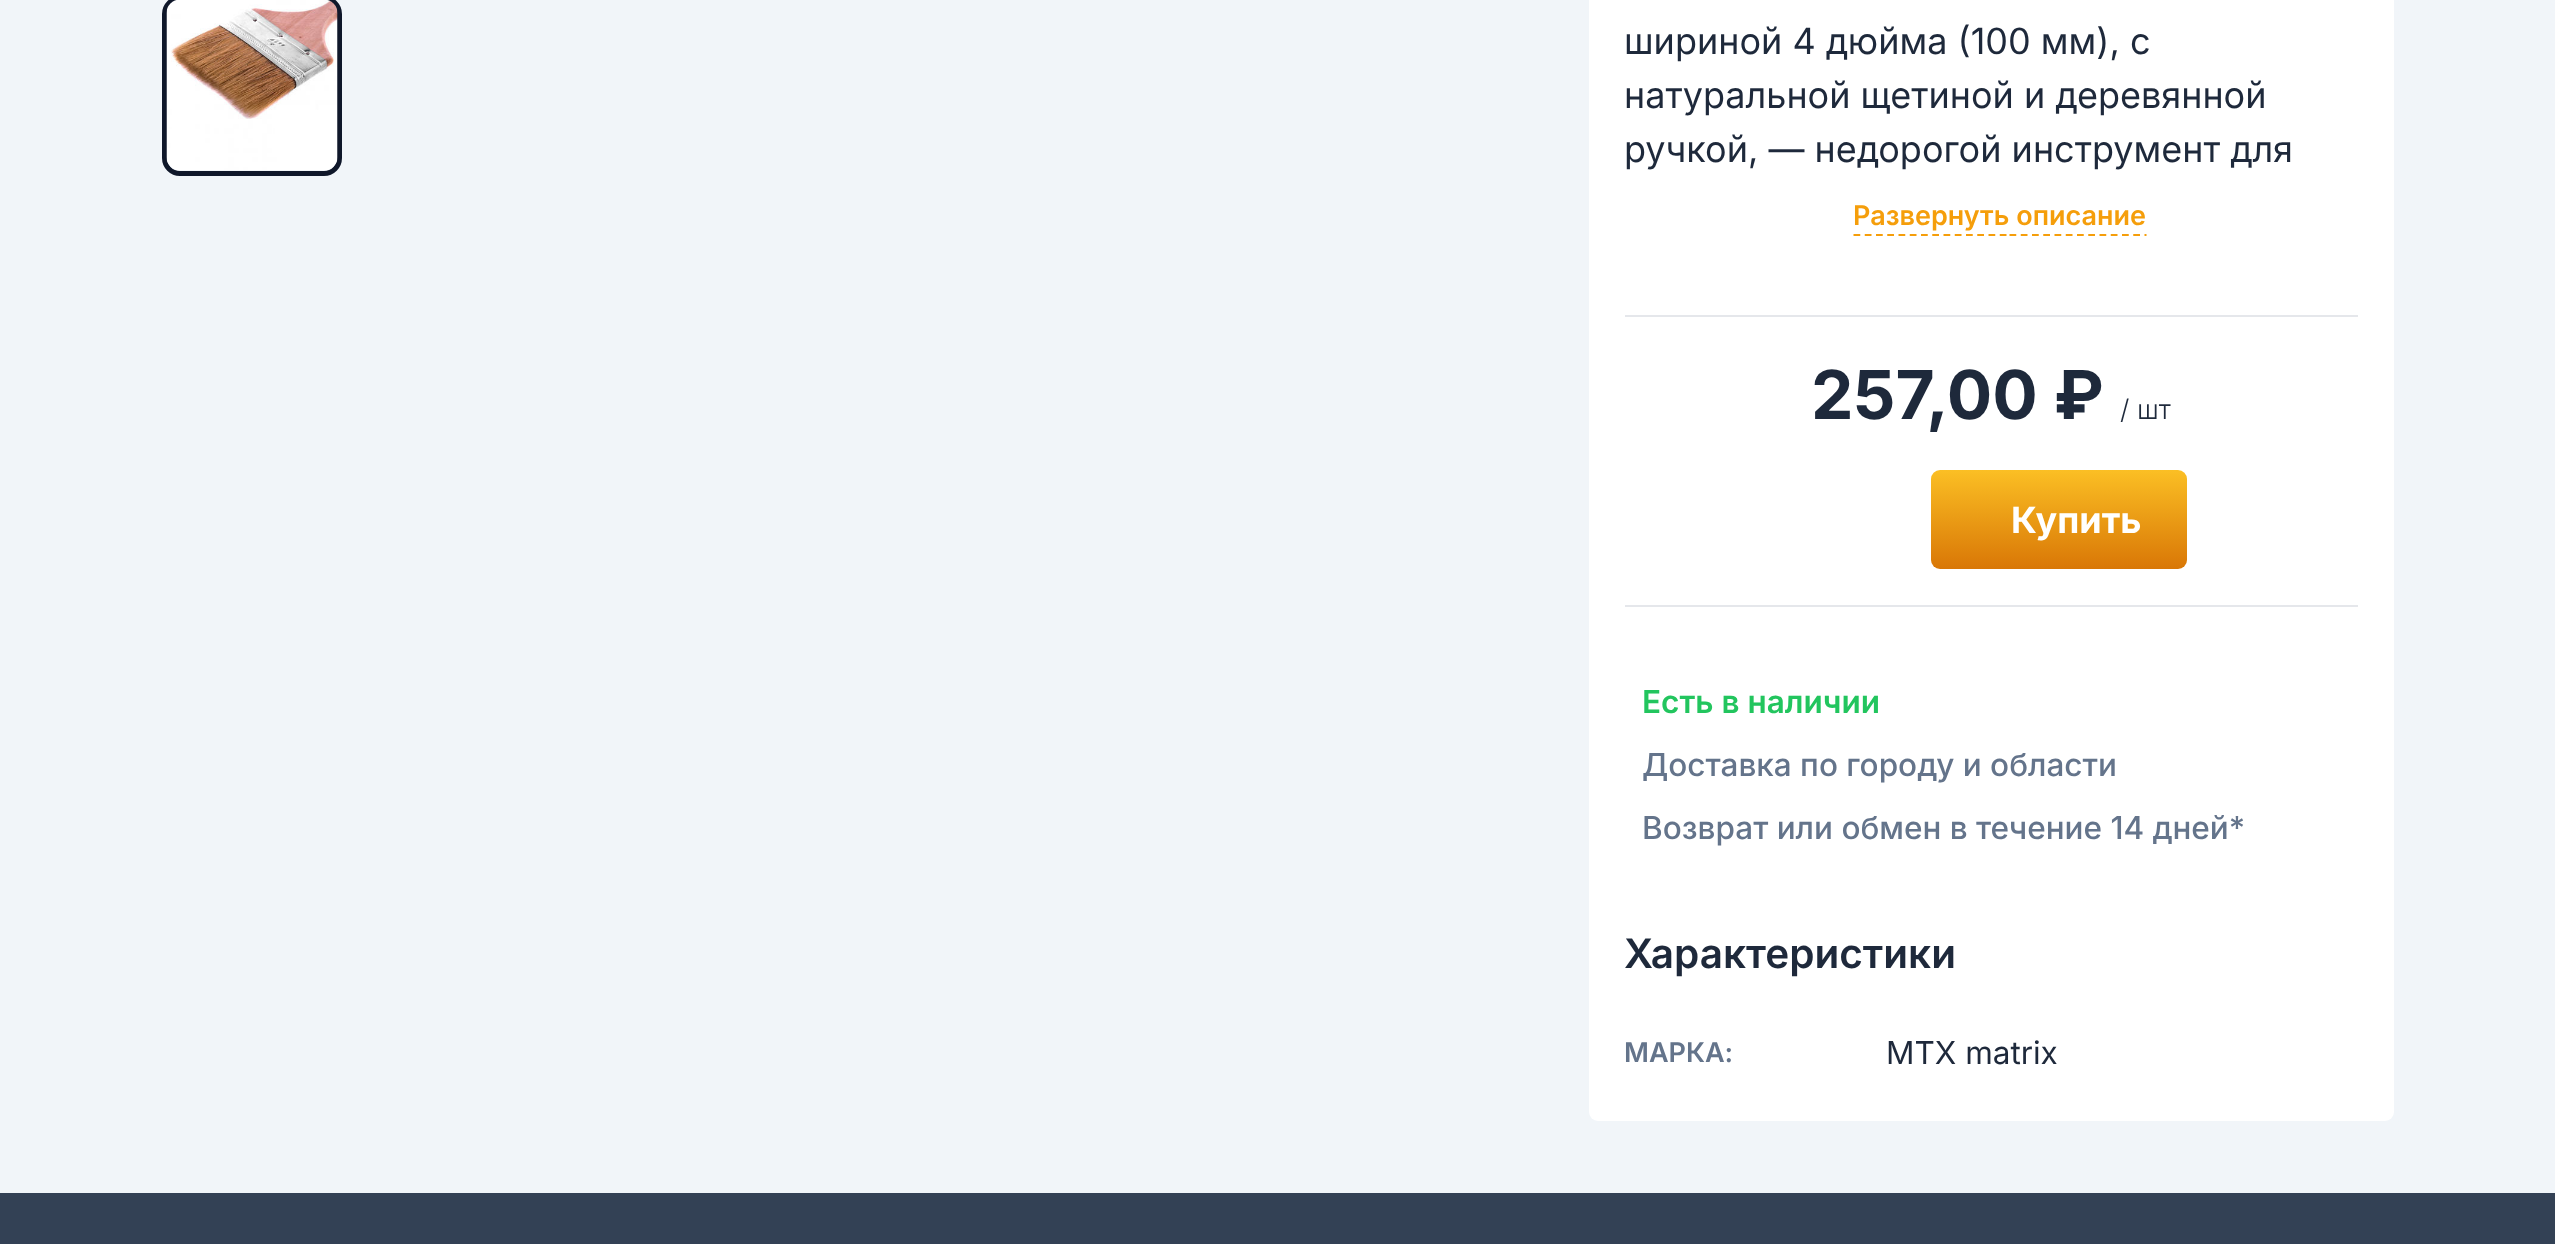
<svg xmlns="http://www.w3.org/2000/svg" width="2555" height="1244">
<defs>
<linearGradient id="g1" gradientUnits="userSpaceOnUse" x1="2059" y1="470" x2="2059" y2="569"><stop offset="0" stop-color="#fbbf24"/><stop offset="1" stop-color="#d97706"/></linearGradient>
</defs>
<rect width="100%" height="100%" fill="#f1f5f9"/>
<rect x="164.5" y="-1.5" width="175" height="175" rx="15.5" fill="none" stroke="#0f172a" stroke-width="5"/>
<image x="166" y="0" width="172" height="171" href="media/1.png"/>
<rect x="1589" y="-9" width="805" height="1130" rx="9" fill="#fff"/>
<text x="1624" y="54" style="font-family:Inter;font-size:36px;fill:#1e293b">шириной 4 дюйма (100 мм), с</text>
<text x="1624" y="108" style="font-family:Inter;font-size:36px;fill:#1e293b">натуральной щетиной и деревянной</text>
<text x="1624" y="162" style="font-family:Inter;font-size:36px;fill:#1e293b">ручкой, — недорогой инструмент для</text>
<text x="1853" y="225" style="font-family:Inter;font-size:27px;font-weight:600;fill:#f59e0b">Развернуть описание</text>
<path d="M1853.5 235h156" fill="none" stroke="#f59e0b" stroke-width="2.2" stroke-dasharray="6.75 4.5"/>
<path d="M2009.5 235h137" fill="none" stroke="#f59e0b" stroke-width="2.2" stroke-dasharray="6.75 4.5"/>
<rect x="1625" y="315" width="733" height="2" fill="#e5e7eb"/>
<rect x="1625" y="605" width="733" height="2" fill="#e5e7eb"/>
<text x="1811" y="419" style="font-family:Inter;font-size:67.5px;font-weight:bold;fill:#1e293b">257,00 ₽</text>
<text x="2120" y="419" style="font-family:Inter;font-size:27px;font-weight:300;fill:#1e293b">/ шт</text>
<rect x="1931" y="470" width="256" height="99" rx="9" fill="url(#g1)"/>
<text x="2011" y="533" style="font-family:Inter;font-size:36px;font-weight:bold;fill:#fff">Купить</text>
<text x="1642" y="713" style="font-family:Inter;font-size:31.5px;font-weight:600;fill:#22c55e">Есть в наличии</text>
<text x="1642" y="776" style="font-family:Inter;font-size:31.5px;font-weight:500;fill:#64748b">Доставка по городу и области</text>
<text x="1642" y="839" style="font-family:Inter;font-size:31.5px;font-weight:500;fill:#64748b">Возврат или обмен в течение 14 дней*</text>
<text x="1624" y="968" style="font-family:Inter;font-size:40.5px;font-weight:600;fill:#1e293b">Характеристики</text>
<text x="1624" y="1062" style="font-family:Inter;font-size:27px;font-weight:600;fill:#64748b">МАРКА:</text>
<text x="1886" y="1064" style="font-family:Inter;font-size:31.5px;fill:#1e293b">MTX matrix</text>
<rect y="1193" width="2555" height="51" fill="#334155"/>
</svg>
